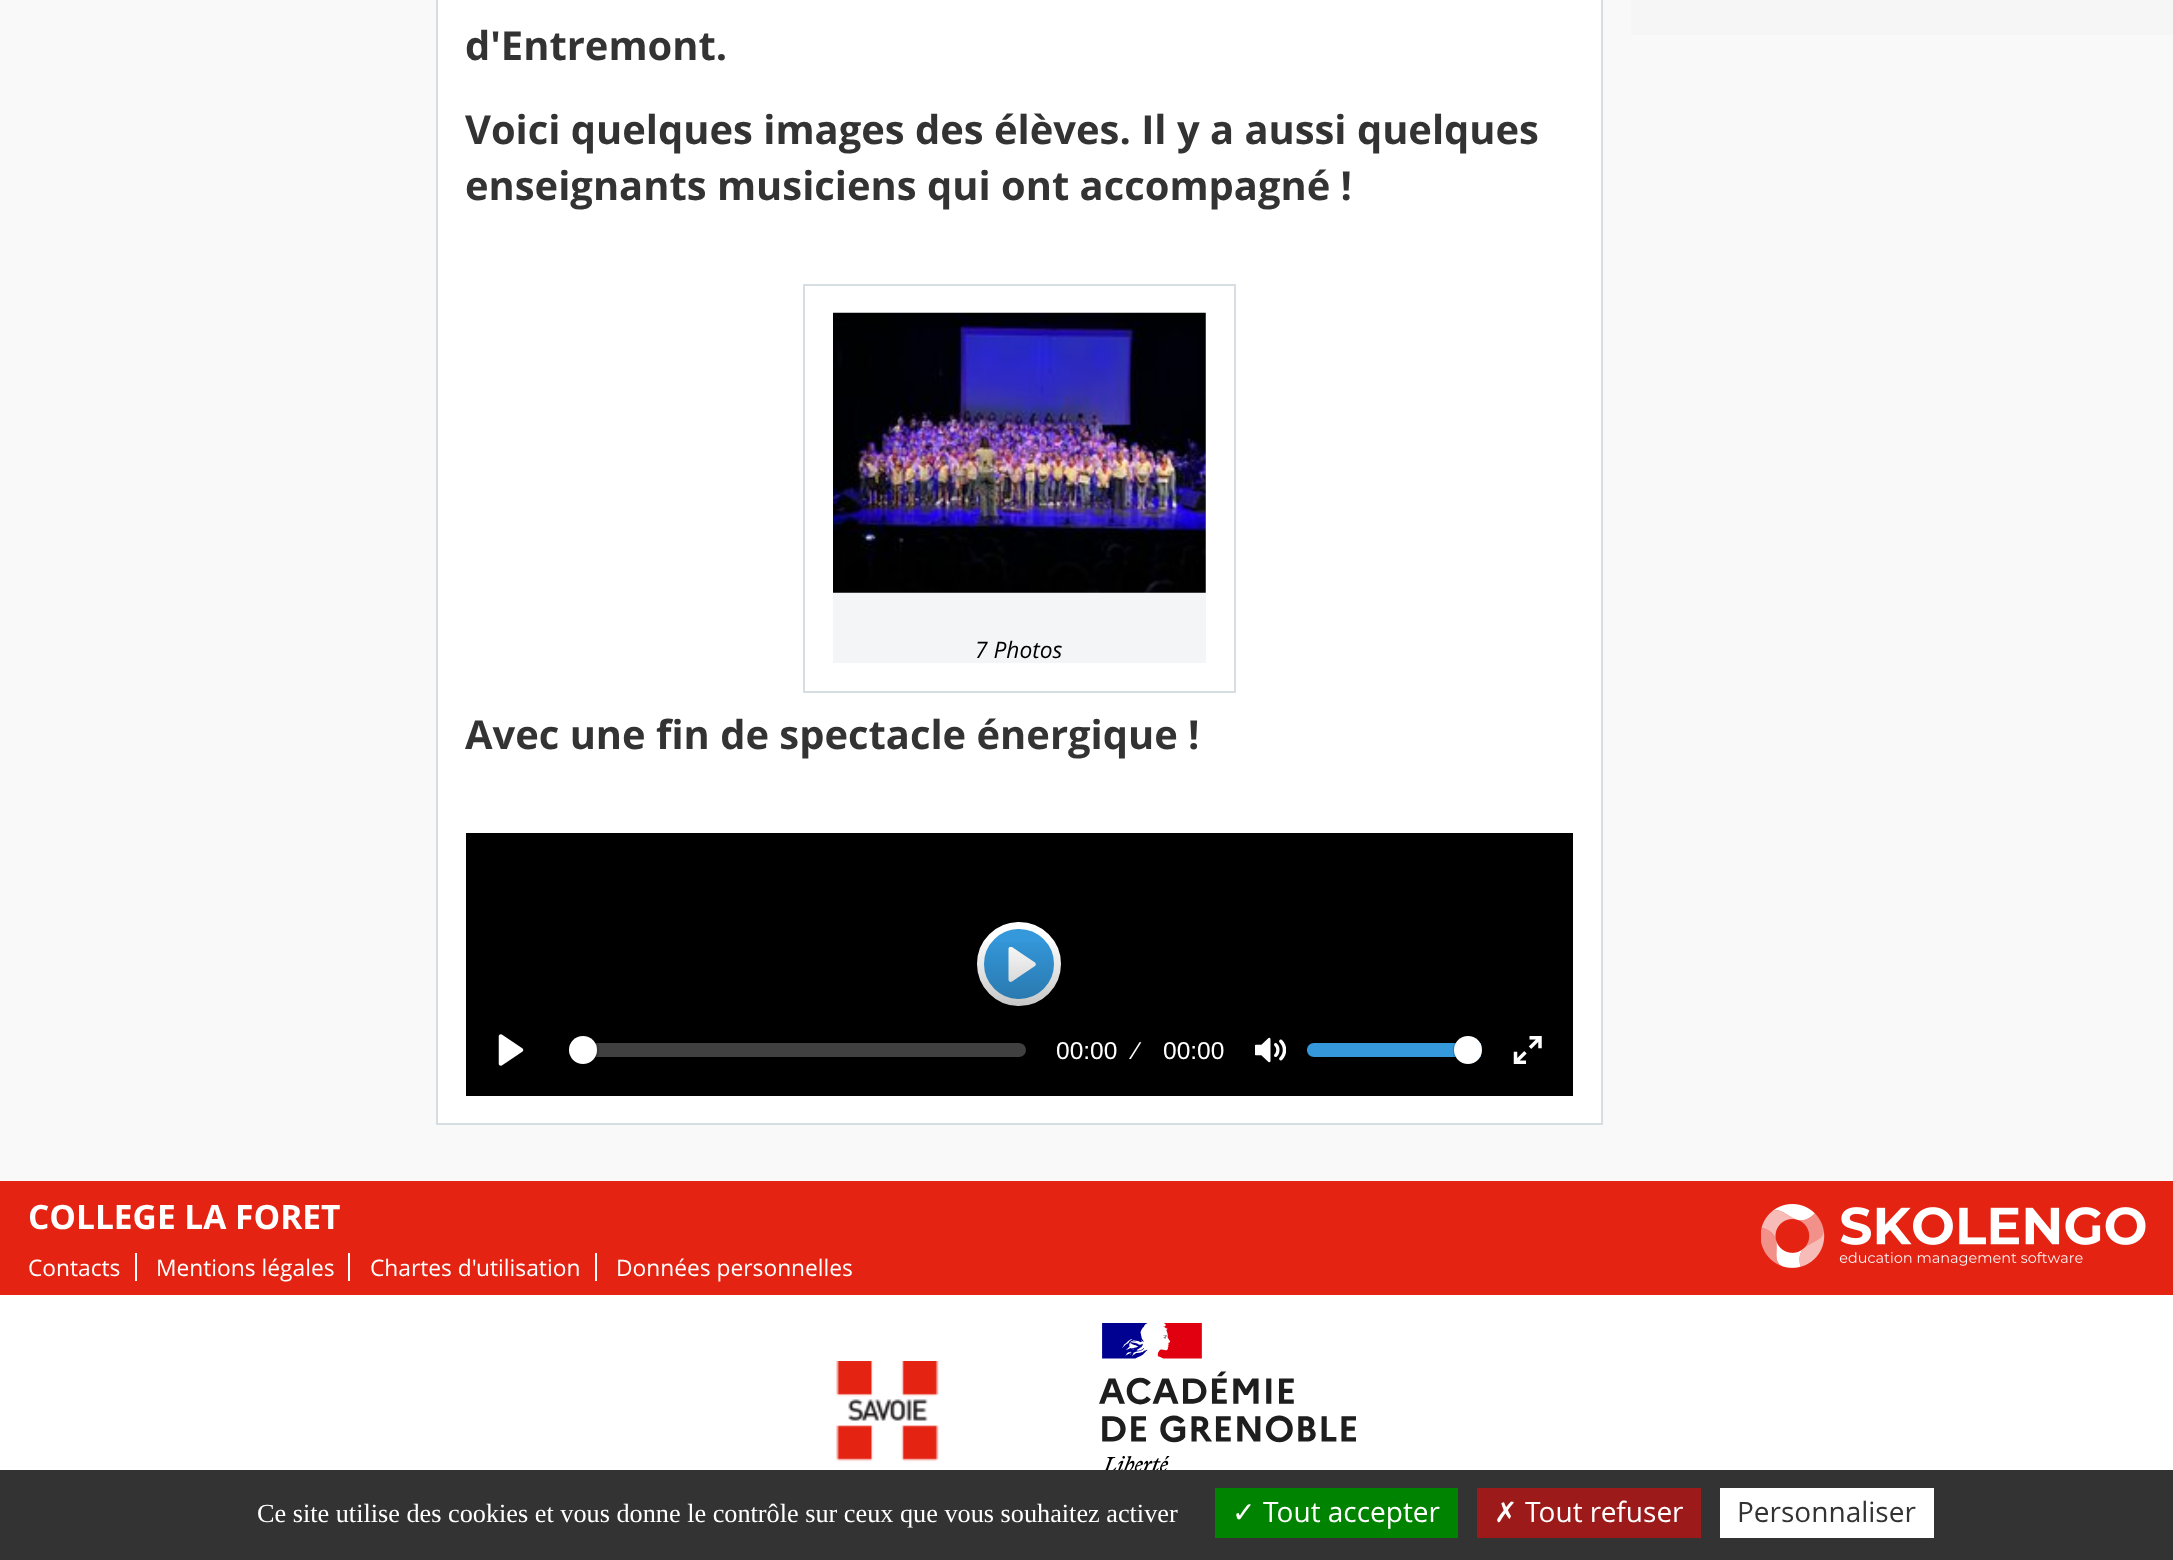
<svg xmlns="http://www.w3.org/2000/svg" width="2173" height="1560">
<defs>
<clipPath id="clip1"><rect x="1005" y="947" width="35" height="35"/></clipPath>
<linearGradient id="g1" gradientUnits="userSpaceOnUse" x1="1019" y1="935" x2="1019" y2="1096"><stop offset="0" stop-color="#000" stop-opacity="0"/><stop offset="1" stop-color="#000" stop-opacity="0.5"/></linearGradient>
</defs>
<rect width="100%" height="100%" fill="#fff"/>
<rect width="2173" height="1181" fill="#f9f9f9"/>
<rect x="1631" width="542" height="35" fill="#f6f6f6"/>
<rect x="437" y="-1" width="1165" height="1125" fill="#fff" stroke="#d7dee2" stroke-width="2"/>
<text x="465" y="60" style="font-family:Open Sans;font-size:39.9px;font-weight:bold;fill:#333">d'Entremont.</text>
<text x="465" y="144" style="font-family:Open Sans;font-size:39.9px;font-weight:bold;fill:#333">Voici quelques images des élèves. Il y a aussi quelques</text>
<text x="465" y="200" style="font-family:Open Sans;font-size:39.9px;font-weight:bold;fill:#333">enseignants musiciens qui ont accompagné !</text>
<rect x="804" y="285" width="431" height="407" fill="none" stroke="#d7dee2" stroke-width="2"/>
<image x="833" y="312" width="373" height="281" href="media/1.png"/>
<rect x="833" y="593" width="373" height="70" fill="#f3f5f6"/>
<text x="975" y="658" style="font-family:Open Sans;font-size:22.75px;font-style:italic;fill:#000">7 Photos</text>
<text x="465" y="749" style="font-family:Open Sans;font-size:39.9px;font-weight:bold;fill:#333">Avec une fin de spectacle énergique !</text>
<rect x="466" y="833" width="1107" height="263" fill="#000"/>
<circle cx="1019" cy="964" r="38.5" fill="#3498db" stroke="#fff" stroke-width="7"/>
<g clip-path="url(#clip1)">
<path d="M1035 962.5l-23-15.5c-1.5-1-3.5 0-3.5 2v30.5c0 2 2 3 3.5 2l23-15.5c1-1 1-2.5 0-3.5z" fill="#fff"/>
</g>
<rect x="977" y="942" width="84" height="64" fill="url(#g1)"/>
<image x="498" y="1034" width="26" height="32" href="media/2.png"/>
<rect x="569" y="1043" width="457" height="14" rx="7" fill="#404040"/>
<circle cx="583" cy="1050" r="15" fill="none" stroke="#00000026" stroke-width="2"/>
<circle cx="583" cy="1050" r="14" fill="#fff"/>
<text x="1056" y="1059" style="font-family:Liberation Sans;font-size:24.5px;fill:#fff">00:00</text>
<text x="1134" y="1059" style="font-family:Liberation Sans;font-size:24.5px;fill:#fff">⁄</text>
<text x="1163" y="1059" style="font-family:Liberation Sans;font-size:24.5px;fill:#fff">00:00</text>
<image x="1255" y="1037" width="31" height="26" href="media/3.png"/>
<path d="M1314 1043h167v14h-167c-4 0-7-3-7-7c0-4 3-7 7-7z" fill="#3498db"/>
<rect x="1454" y="1035" width="29" height="30" rx="14.5" fill="none" stroke="#00000026" stroke-width="2"/>
<rect x="1454" y="1038" width="28" height="28" rx="14" fill="#00000026" filter="blur(1px)"/>
<circle cx="1468" cy="1050" r="14" fill="#fff"/>
<image x="1513" y="1036" width="29" height="28" href="media/4.png"/>
<rect y="1181" width="2173" height="114" fill="#e42313"/>
<text x="28" y="1229" style="font-family:Open Sans;font-size:33.5px;font-weight:bold;fill:#fff">COLLEGE LA FORET</text>
<rect x="135" y="1253" width="2" height="28" fill="#fff"/>
<text x="28" y="1276" style="font-family:Open Sans;font-size:22.75px;fill:#fff">Contacts</text>
<rect x="348" y="1253" width="2" height="28" fill="#fff"/>
<text x="156" y="1276" style="font-family:Open Sans;font-size:22.75px;fill:#fff">Mentions légales</text>
<rect x="595" y="1253" width="2" height="28" fill="#fff"/>
<text x="370" y="1276" style="font-family:Open Sans;font-size:22.75px;fill:#fff">Chartes d'utilisation</text>
<text x="616" y="1276" style="font-family:Open Sans;font-size:22.75px;fill:#fff">Données personnelles</text>
<image x="1761" y="1204" width="385" height="64" href="media/5.png"/>
<image x="817" y="1361" width="142" height="109" href="media/6.png"/>
<image x="1099" y="1323" width="257" height="147" href="media/7.png"/>
<rect y="1470" width="2173" height="90" fill="#333"/>
<text x="257" y="1522" style="font-family:Liberation Serif;font-size:26.25px;fill:#fff">Ce site utilise des cookies et vous donne le contrôle sur ceux que vous souhaitez activer</text>
<rect x="1215" y="1488" width="243" height="50" fill="#008300"/>
<text x="1232" y="1522" style="font-family:DejaVu Sans;font-size:28px;fill:#fff">✓</text>
<text x="1263" y="1522" style="font-family:Open Sans;font-size:28px;fill:#fff">Tout accepter</text>
<rect x="1477" y="1488" width="224" height="50" fill="#9c1a1a"/>
<text x="1494" y="1522" style="font-family:DejaVu Sans;font-size:28px;fill:#fff">✗</text>
<text x="1525" y="1522" style="font-family:Open Sans;font-size:28px;fill:#fff">Tout refuser</text>
<rect x="1720" y="1488" width="214" height="50" fill="#fff"/>
<text x="1737" y="1522" style="font-family:Open Sans;font-size:28px;fill:#333">Personnaliser</text>
</svg>
